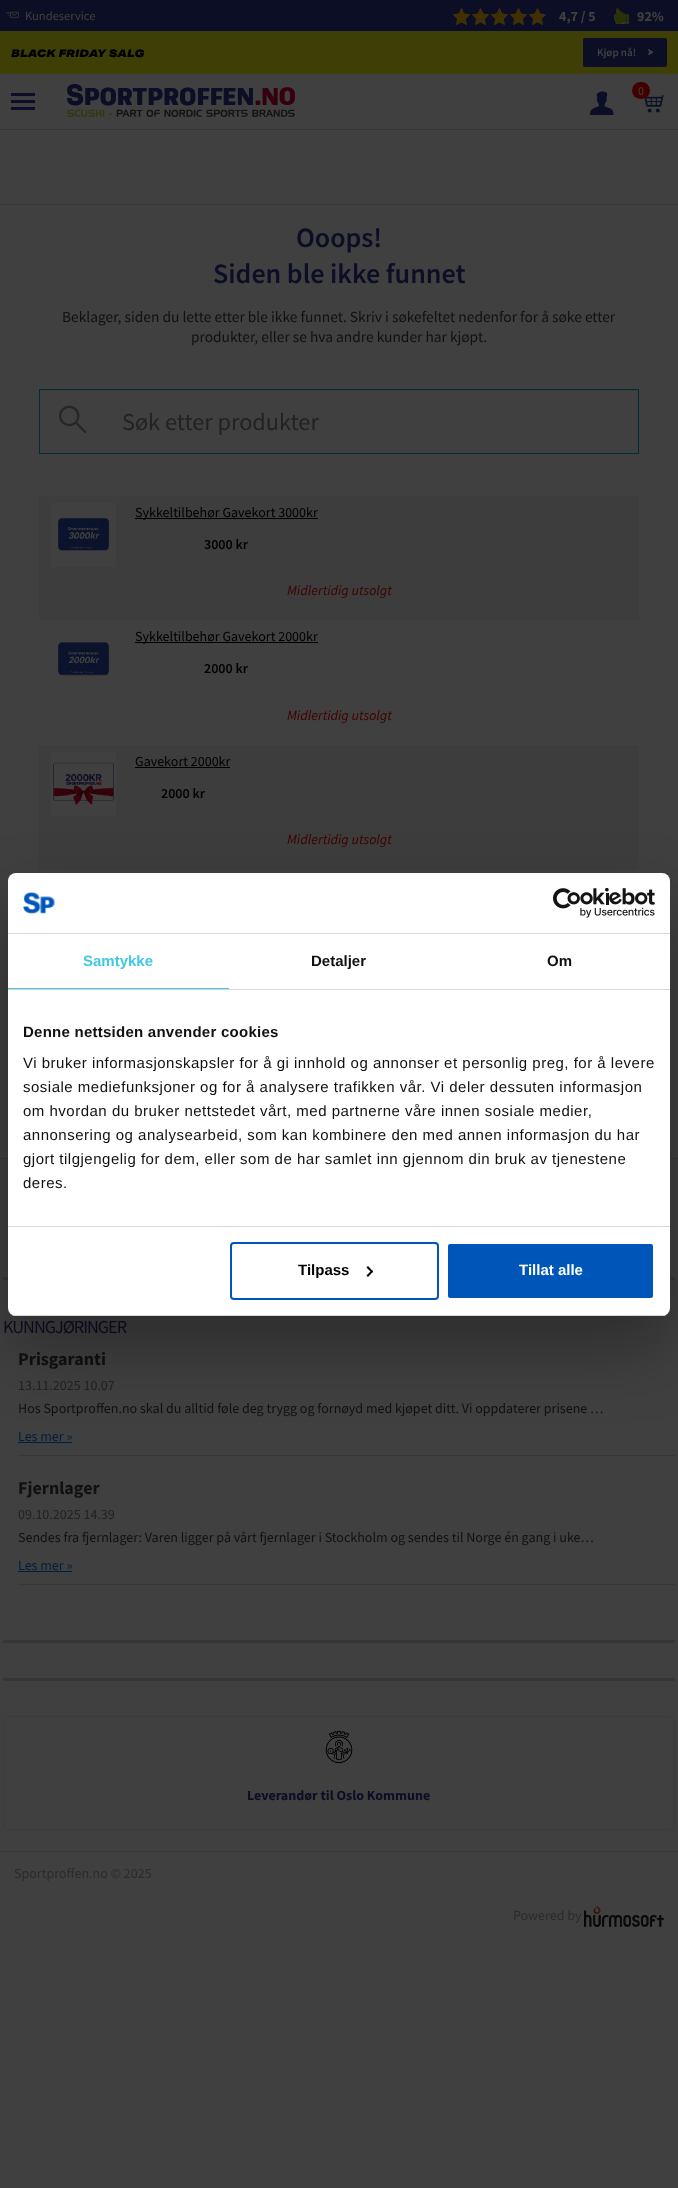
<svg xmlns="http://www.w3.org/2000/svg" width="678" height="2188">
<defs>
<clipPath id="clip1"><rect x="8" y="873" width="662" height="443" rx="8"/></clipPath>
</defs>
<rect width="100%" height="100%" fill="#404040"/>
<rect width="678" height="31" fill="#0c0e25"/>
<image x="6" y="11" width="13" height="7" href="media/1.png"/>
<text x="25" y="20" style="font-family:Source Sans Pro;font-size:12.5px;fill:#404040">Kundeservice</text>
<image x="453" y="8" width="93" height="17" href="media/2.png"/>
<image x="453" y="8" width="90" height="17" href="media/3.png"/>
<text x="559" y="21" style="font-family:Source Sans Pro;font-size:14px;font-weight:bold;fill:#404040">4,7 / 5</text>
<image x="614" y="8" width="15" height="16" href="media/4.png"/>
<text x="637" y="21" style="font-family:Source Sans Pro;font-size:14px;font-weight:bold;fill:#404040">92%</text>
<rect y="31" width="678" height="43" fill="#3e3e07"/>
<text x="11" y="57" style="font-family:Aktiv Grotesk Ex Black;font-size:10.5px;font-weight:900;font-style:italic;fill:#000">BLACK FRIDAY SALG</text>
<rect x="583" y="38" width="84" height="29" rx="2" fill="#0c0e25"/>
<text x="597" y="56" style="font-family:'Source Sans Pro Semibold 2';font-size:11px;font-weight:600;fill:#404040">Kjøp nå!</text>
<image x="648" y="49" width="5" height="6" href="media/5.png"/>
<rect y="204" width="678" height="1" fill="#373737"/>
<rect x="11" y="93" width="24" height="3" fill="#0c0e25"/>
<rect x="11" y="100" width="24" height="3" fill="#0c0e25"/>
<rect x="11" y="107" width="24" height="3" fill="#0c0e25"/>
<image x="67" y="84" width="228" height="33" href="media/6.png"/>
<image x="590" y="91" width="24" height="24" href="media/7.png"/>
<image x="644" y="95" width="20" height="18" href="media/8.png"/>
<rect x="632" y="82" width="18" height="17" rx="8.5" fill="#400000"/>
<text x="638" y="95" style="font-family:Source Sans Pro;font-size:12px;fill:#404040">0</text>
<rect y="129" width="678" height="1" fill="#373737"/>
<text x="296" y="247" style="font-family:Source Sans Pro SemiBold;font-size:28px;font-weight:600;fill:#0c0e25">Ooops!</text>
<text x="213" y="283" style="font-family:Source Sans Pro SemiBold;font-size:28px;font-weight:600;fill:#0c0e25">Siden ble ikke funnet</text>
<text x="62" y="322" style="font-family:Source Sans Pro;font-size:15.4px;fill:#111">Beklager, siden du lette etter ble ikke funnet. Skriv i søkefeltet nedenfor for å søke etter</text>
<text x="191" y="342" style="font-family:Source Sans Pro;font-size:15.4px;fill:#111">produkter, eller se hva andre kunder har kjøpt.</text>
<rect x="40" y="390" width="598" height="1" fill="#3b3b3b"/>
<rect x="39.5" y="389.5" width="599" height="64" fill="none" stroke="#002c37"/>
<image x="59" y="405" width="28" height="28" href="media/9.png"/>
<text x="122" y="430" style="font-family:Source Sans Pro;font-size:24.25px;fill:#222">Søk etter produkter</text>
<rect x="39" y="496" width="600" height="124" fill="#3d3d3d"/>
<image x="51" y="503" width="65" height="64" href="media/10.png"/>
<rect x="135" y="518" width="183" height="1" fill="#000"/>
<text x="135" y="517" style="font-family:Source Sans Pro;font-size:14px;fill:#000">Sykkeltilbehør Gavekort 3000kr</text>
<text x="204" y="549" style="font-family:Source Sans Pro SemiBold;font-size:14px;font-weight:600;fill:#000">3000 kr</text>
<text x="287" y="595" style="font-family:Source Sans Pro;font-size:14px;font-style:italic;fill:#400000">Midlertidig utsolgt</text>
<image x="58" y="642" width="52" height="34" href="media/11.png"/>
<rect x="135" y="642" width="183" height="1" fill="#000"/>
<text x="135" y="641" style="font-family:Source Sans Pro;font-size:14px;fill:#000">Sykkeltilbehør Gavekort 2000kr</text>
<text x="204" y="673" style="font-family:Source Sans Pro SemiBold;font-size:14px;font-weight:600;fill:#000">2000 kr</text>
<text x="287" y="720" style="font-family:Source Sans Pro;font-size:14px;font-style:italic;fill:#400000">Midlertidig utsolgt</text>
<rect x="39" y="745" width="600" height="124" fill="#3d3d3d"/>
<image x="51" y="752" width="65" height="64" href="media/12.png"/>
<text x="135" y="766" style="font-family:Source Sans Pro;font-size:14px;fill:#000">Gavekort 2000kr</text>
<rect x="135" y="767" width="95" height="1" fill="#000"/>
<text x="161" y="798" style="font-family:Source Sans Pro SemiBold;font-size:14px;font-weight:600;fill:#000">2000 kr</text>
<text x="287" y="844" style="font-family:Source Sans Pro;font-size:14px;font-style:italic;fill:#400000">Midlertidig utsolgt</text>
<rect y="1158" width="678" height="1" fill="#373737"/>
<rect y="1851" width="678" height="1" fill="#373737"/>
<rect x="3" y="1277" width="672" height="3" fill="#363636"/>
<text x="3" y="1333" style="font-family:Source Sans Pro;font-size:18.25px;letter-spacing:-1px;fill:#0c0e25">KUNNGJØRINGER</text>
<rect x="18" y="1455" width="657" height="1" fill="#373737"/>
<text x="18" y="1365" style="font-family:Source Sans Pro;font-size:18px;font-weight:bold;fill:#111">Prisgaranti</text>
<text x="18" y="1390" style="font-family:Source Sans Pro;font-size:14px;fill:#222">13.11.2025 10.07</text>
<text x="18" y="1413" style="font-family:Source Sans Pro;font-size:14px;fill:#111">Hos Sportproffen.no skal du alltid føle deg trygg og fornøyd med kjøpet ditt. Vi oppdaterer prisene …</text>
<text x="18" y="1441" style="font-family:Source Sans Pro;font-size:14px;fill:#001f40">Les mer »</text>
<rect x="18" y="1442" width="54" height="1" fill="#001f40"/>
<rect x="18" y="1584" width="657" height="1" fill="#373737"/>
<text x="18" y="1494" style="font-family:Source Sans Pro;font-size:18px;font-weight:bold;fill:#111">Fjernlager</text>
<text x="18" y="1519" style="font-family:Source Sans Pro;font-size:14px;fill:#222">09.10.2025 14.39</text>
<text x="18" y="1542" style="font-family:Source Sans Pro;font-size:14px;fill:#111">Sendes fra fjernlager: Varen ligger på vårt fjernlager i Stockholm og sendes til Norge én gang i uke…</text>
<text x="18" y="1570" style="font-family:Source Sans Pro;font-size:14px;fill:#001f40">Les mer »</text>
<rect x="18" y="1571" width="54" height="1" fill="#001f40"/>
<rect x="3" y="1640" width="672" height="3" fill="#363636"/>
<rect x="3" y="1678" width="672" height="3" fill="#363636"/>
<rect x="3.5" y="1716.5" width="671" height="113" rx="4.5" fill="none" stroke="#3c3c3c"/>
<image x="325" y="1730" width="28" height="34" href="media/13.png"/>
<text x="247" y="1800" style="font-family:Source Sans Pro;font-size:14px;font-weight:bold;fill:#0c0e25">Leverandør til Oslo Kommune</text>
<rect x="8" y="905" width="662" height="443" rx="8" fill="#0000004d" filter="blur(34px)"/>
<rect x="8" y="873" width="662" height="443" rx="8" fill="#fff"/>
<rect x="8" y="933" width="662" height="1" fill="#d6d6d6"/>
<image x="23" y="892" width="33" height="22" href="media/14.png"/>
<image x="553" y="888" width="102" height="30" href="media/15.png"/>
<rect x="8" y="989" width="662" height="1" fill="#d6d6d6"/>
<rect x="8" y="988" width="221" height="1" fill="#43c7e7"/>
<text x="83" y="966" style="font-family:Liberation Sans;font-size:15px;font-weight:bold;fill:#43c7e7">Samtykke</text>
<text x="311" y="966" style="font-family:Liberation Sans;font-size:15px;font-weight:bold;fill:#111">Detaljer</text>
<text x="547" y="966" style="font-family:Liberation Sans;font-size:15px;font-weight:bold;fill:#111">Om</text>
<rect x="8" y="1226" width="662" height="1" fill="#d6d6d6"/>
<text x="23" y="1037" style="font-family:Liberation Sans;font-size:15px;font-weight:bold;letter-spacing:0.25px;fill:#111">Denne nettsiden anvender cookies</text>
<text x="23" y="1068" style="font-family:Liberation Sans;font-size:15px;letter-spacing:0.5px;fill:#111">Vi bruker informasjonskapsler for å gi innhold og annonser et personlig preg, for å levere</text>
<text x="23" y="1092" style="font-family:Liberation Sans;font-size:15px;letter-spacing:0.5px;fill:#111">sosiale mediefunksjoner og for å analysere trafikken vår. Vi deler dessuten informasjon</text>
<text x="23" y="1116" style="font-family:Liberation Sans;font-size:15px;letter-spacing:0.5px;fill:#111">om hvordan du bruker nettstedet vårt, med partnerne våre innen sosiale medier,</text>
<text x="23" y="1140" style="font-family:Liberation Sans;font-size:15px;letter-spacing:0.5px;fill:#111">annonsering og analysearbeid, som kan kombinere den med annen informasjon du har</text>
<text x="23" y="1164" style="font-family:Liberation Sans;font-size:15px;letter-spacing:0.5px;fill:#111">gjort tilgjengelig for dem, eller som de har samlet inn gjennom din bruk av tjenestene</text>
<text x="23" y="1188" style="font-family:Liberation Sans;font-size:15px;letter-spacing:0.5px;fill:#111">deres.</text>
<g clip-path="url(#clip1)">
<rect x="8" y="1315" width="662" height="1" fill="#d6d6d6"/>
</g>
<rect x="231" y="1243" width="207" height="56" rx="3" fill="none" stroke="#0056b8" stroke-width="2"/>
<text x="298" y="1275" style="font-family:Liberation Sans;font-size:15px;font-weight:bold;fill:#000">Tilpass</text>
<path d="M368 1266l5 5.5l-1 1.5l-5.5-5.5z" fill="#000"/>
<path d="M372 1270l1 1.5l-5 5.5l-1.5-1.5z" fill="#000"/>
<rect x="447" y="1243" width="207" height="56" rx="3" fill="#0056b8" stroke="#fff" stroke-width="2"/>
<text x="519" y="1275" style="font-family:Liberation Sans;font-size:15px;font-weight:bold;fill:#fff">Tillat alle</text>
<text x="14" y="1878" style="font-family:Source Sans Pro;font-size:14px;fill:#2b2b2b">Sportproffen.no © 2025</text>
<text x="513" y="1920" style="font-family:Source Sans Pro;font-size:14px;fill:#2b2b2b">Powered by</text>
<image x="584" y="1905" width="80" height="22" href="media/16.png"/>
</svg>
